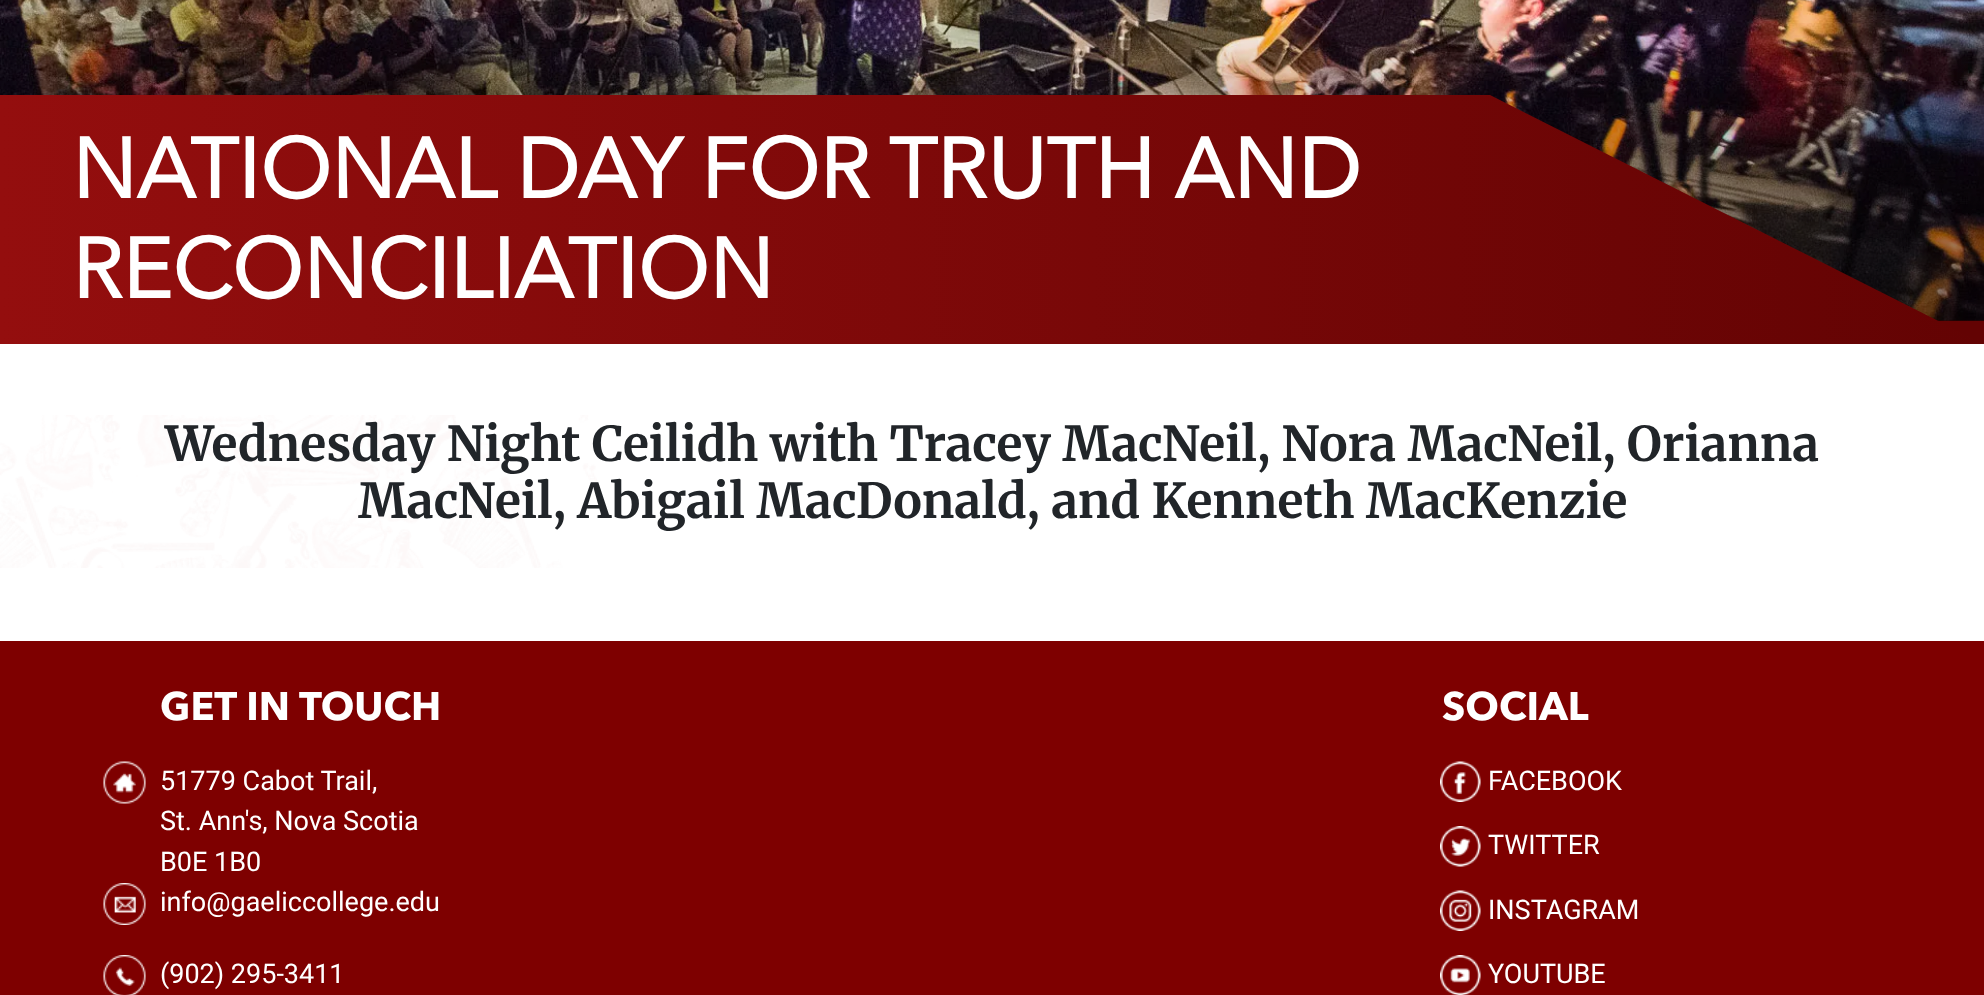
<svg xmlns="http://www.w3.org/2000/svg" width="1984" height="995">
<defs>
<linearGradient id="g1" gradientUnits="userSpaceOnUse" x1="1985" y1="11" x2="0" y2="11"><stop offset="0" stop-color="#630303"/><stop offset="1" stop-color="#940e0e"/></linearGradient>
<linearGradient id="g2" gradientUnits="userSpaceOnUse" x1="992" y1="10" x2="992" y2="321"><stop offset="0" stop-color="#000" stop-opacity="0"/><stop offset="1" stop-color="#000" stop-opacity="0.5"/></linearGradient>
<linearGradient id="g3" gradientUnits="userSpaceOnUse" x1="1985" y1="219" x2="0" y2="219"><stop offset="0" stop-color="#630303"/><stop offset="1" stop-color="#940e0e"/></linearGradient>
</defs>
<rect width="100%" height="100%" fill="#fff"/>
<rect x="1936" y="320" width="48" height="1" fill="url(#g1)"/>
<rect x="1938" y="321" width="46" height="23" fill="#630303"/>
<image x="0" y="0" width="1984" height="321" href="media/1.png"/>
<rect y="23" width="1984" height="298" fill="url(#g2)"/>
<path d="M0 95v249h1984l-494-249z" fill="url(#g3)"/>
<text x="72" y="198" style="font-family:'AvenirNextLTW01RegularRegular';font-size:84px;font-weight:bold;fill:#fff">NATIONAL DAY FOR TRUTH AND</text>
<text x="72" y="298" style="font-family:'AvenirNextLTW01RegularRegular';font-size:84px;font-weight:bold;fill:#fff">RECONCILIATION</text>
<image x="0" y="415" width="597" height="153" href="media/2.png"/>
<text x="165" y="461" style="font-family:Merriweather;font-size:48px;font-weight:bold;fill:#212529">Wednesday Night Ceilidh with Tracey MacNeil, Nora MacNeil, Orianna</text>
<text x="358" y="518" style="font-family:Merriweather;font-size:48px;font-weight:bold;fill:#212529">MacNeil, Abigail MacDonald, and Kenneth MacKenzie</text>
<rect y="641" width="1984" height="354" fill="#7e0000"/>
<text x="160" y="720" style="font-family:'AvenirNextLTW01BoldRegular';font-size:39.5px;font-weight:bold;fill:#fff">GET IN TOUCH</text>
<image x="103" y="761" width="43" height="43" href="media/3.png"/>
<text x="160" y="790" style="font-family:Roboto;font-size:27px;fill:#fff">51779 Cabot Trail,</text>
<text x="160" y="830" style="font-family:Roboto;font-size:27px;fill:#fff">St. Ann's, Nova Scotia</text>
<text x="160" y="871" style="font-family:Roboto;font-size:27px;fill:#fff">B0E 1B0</text>
<image x="103" y="883" width="43" height="42" href="media/4.png"/>
<text x="160" y="911" style="font-family:Roboto;font-size:27px;fill:#fff">info@gaeliccollege.edu</text>
<image x="103" y="955" width="43" height="40" href="media/5.png"/>
<text x="160" y="983" style="font-family:Roboto;font-size:27px;fill:#fff">(902) 295-3411</text>
<text x="1442" y="720" style="font-family:'AvenirNextLTW01BoldRegular';font-size:39.5px;font-weight:bold;fill:#fff">SOCIAL</text>
<image x="1440" y="761" width="41" height="41" href="media/6.png"/>
<text x="1488" y="790" style="font-family:Roboto;font-size:27px;fill:#fff">FACEBOOK</text>
<image x="1440" y="826" width="41" height="41" href="media/7.png"/>
<text x="1488" y="854" style="font-family:Roboto;font-size:27px;fill:#fff">TWITTER</text>
<image x="1440" y="890" width="41" height="41" href="media/8.png"/>
<text x="1488" y="919" style="font-family:Roboto;font-size:27px;fill:#fff">INSTAGRAM</text>
<image x="1440" y="955" width="41" height="40" href="media/9.png"/>
<text x="1488" y="983" style="font-family:Roboto;font-size:27px;fill:#fff">YOUTUBE</text>
</svg>
